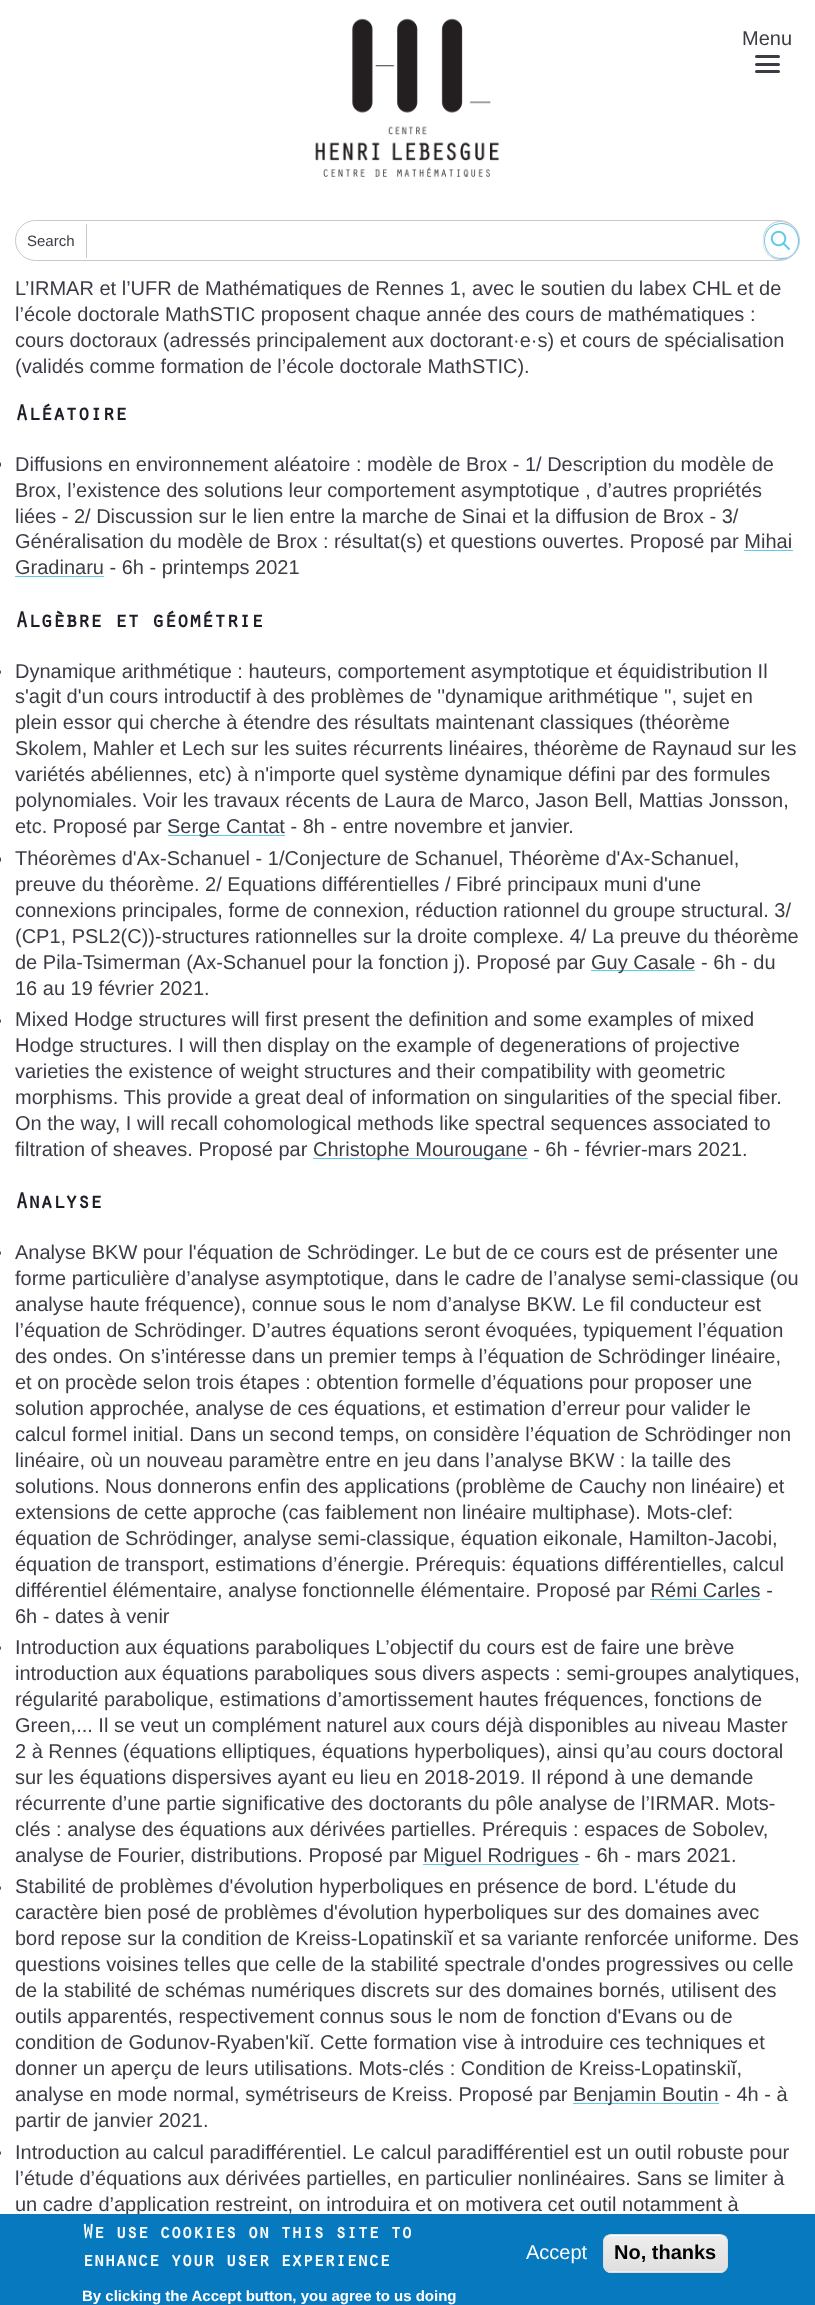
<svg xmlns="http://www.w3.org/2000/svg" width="815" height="2305">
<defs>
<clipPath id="clip1"><rect x="603" y="2234" width="125" height="39" rx="8"/></clipPath>
<linearGradient id="g1" gradientUnits="userSpaceOnUse" x1="665" y1="2235" x2="665" y2="2271"><stop offset="0.05" stop-color="#ededed"/><stop offset="1" stop-color="#dfdfdf"/></linearGradient>
<linearGradient id="g2" gradientUnits="userSpaceOnUse" x1="665" y1="2271" x2="665" y2="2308"><stop offset="0.05" stop-color="#ededed"/><stop offset="1" stop-color="#dfdfdf"/></linearGradient>
</defs>
<rect width="100%" height="100%" fill="#fff"/>
<image x="315" y="18" width="185" height="159" href="media/1.png"/>
<text x="742" y="45" style="font-family:Liberation Sans;font-size:20px;fill:#3c3c46">Menu</text>
<rect x="755" y="63" width="25" height="3" rx="1.5" fill="#3c3c46"/>
<rect x="755" y="55" width="25" height="3" rx="1.5" fill="#3c3c46"/>
<rect x="755" y="70" width="25" height="3" rx="1.5" fill="#3c3c46"/>
<rect x="15.5" y="220.5" width="784" height="40" rx="20" fill="none" stroke="#c8c8cd"/>
<rect x="86" y="224" width="1" height="34" fill="#c8c8cd"/>
<text x="27" y="246" style="font-family:Liberation Sans;font-size:15px;fill:#3c3c46">Search</text>
<path d="M799 240l-1 6c1-4 1-7 0-11zm-19-18c8 0 13 4 17 9c-4-6-10-10-17-10c-23 1-23 38 0 39c5 0 10-2 14-6c-8 7-22 7-28-3c-7-11 0-29 14-29z" fill="#c8c8cd" fill-rule="evenodd"/>
<image x="770" y="230" width="20" height="20" href="media/2.png"/>
<path d="M781.5 223c3.5 0 7 1 10 3c11.5 8 9.5 26.5-3.5 31.5c-2 1-4.5 1.5-6.5 1.5c-24-1.5-22.5-36 0-36zm0 1c-22 0-22 34 0 34c22 0 22-34 0-34z" fill="#5fcbe8" fill-rule="evenodd"/>
<text x="15" y="295" style="font-family:Liberation Sans;font-size:20px;fill:#3c3c46">L’IRMAR et l’UFR de Mathématiques de Rennes 1, avec le soutien du labex CHL et de</text>
<text x="15" y="321" style="font-family:Liberation Sans;font-size:20px;fill:#3c3c46">l’école doctorale MathSTIC proposent chaque année des cours de mathématiques :</text>
<text x="15" y="347" style="font-family:Liberation Sans;font-size:20px;fill:#3c3c46">cours doctoraux (adressés principalement aux doctorant·e·s) et cours de spécialisation</text>
<text x="15" y="373" style="font-family:Liberation Sans;font-size:20px;fill:#3c3c46">(validés comme formation de l’école doctorale MathSTIC).</text>
<text x="15" y="420" style="font-family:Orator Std;font-size:22.5px;font-weight:bold;letter-spacing:-1.1px;fill:#1e1e28">Aléatoire</text>
<path d="M0 461h-2c1.5 0 3 1.5 3 3v1c0 1.5-1.5 3-3 3h2z" fill="#3c3c46"/>
<text x="15" y="471" style="font-family:Liberation Sans;font-size:20px;fill:#3c3c46">Diffusions en environnement aléatoire : modèle de Brox - 1/ Description du modèle de</text>
<text x="15" y="497" style="font-family:Liberation Sans;font-size:20px;fill:#3c3c46">Brox, l’existence des solutions leur comportement asymptotique , d’autres propriétés</text>
<text x="15" y="523" style="font-family:Liberation Sans;font-size:20px;fill:#3c3c46">liées - 2/ Discussion sur le lien entre la marche de Sinai et la diffusion de Brox - 3/</text>
<text x="15" y="548" style="font-family:Liberation Sans;font-size:20px;fill:#3c3c46">Généralisation du modèle de Brox : résultat(s) et questions ouvertes. Proposé par Mihai</text>
<rect x="15" y="576" width="89" height="1" fill="#5fcbe8"/>
<text x="15" y="574" style="font-family:Liberation Sans;font-size:20px;fill:#3c3c46">Gradinaru - 6h - printemps 2021</text>
<rect x="744" y="550" width="49" height="1" fill="#5fcbe8"/>
<text x="15" y="627" style="font-family:Orator Std;font-size:22.5px;font-weight:bold;letter-spacing:-1.1px;fill:#1e1e28">Algèbre et géométrie</text>
<path d="M0 669h-2c1.5 0 3 1.5 3 3c0 1.5-1.5 3-3 3h2z" fill="#3c3c46"/>
<text x="15" y="678" style="font-family:Liberation Sans;font-size:20px;fill:#3c3c46">Dynamique arithmétique : hauteurs, comportement asymptotique et équidistribution Il</text>
<text x="15" y="703" style="font-family:Liberation Sans;font-size:20px;fill:#3c3c46">s'agit d'un cours introductif à des problèmes de ''dynamique arithmétique '', sujet en</text>
<text x="15" y="729" style="font-family:Liberation Sans;font-size:20px;fill:#3c3c46">plein essor qui cherche à étendre des résultats maintenant classiques (théorème</text>
<text x="15" y="755" style="font-family:Liberation Sans;font-size:20px;fill:#3c3c46">Skolem, Mahler et Lech sur les suites récurrents linéaires, théorème de Raynaud sur les</text>
<text x="15" y="781" style="font-family:Liberation Sans;font-size:20px;fill:#3c3c46">variétés abéliennes, etc) à n'importe quel système dynamique défini par des formules</text>
<text x="15" y="807" style="font-family:Liberation Sans;font-size:20px;fill:#3c3c46">polynomiales. Voir les travaux récents de Laura de Marco, Jason Bell, Mattias Jonsson,</text>
<text x="15" y="833" style="font-family:Liberation Sans;font-size:20px;fill:#3c3c46">etc. Proposé par</text>
<rect x="168" y="835" width="117" height="1" fill="#5fcbe8"/>
<text x="167" y="833" style="font-family:Liberation Sans;font-size:20px;fill:#3c3c46">Serge Cantat - 8h - entre novembre et janvier.</text>
<path d="M0 856h-2c1.5 0 3 1.5 3 3v1c0 1.5-1.5 3-3 3h2z" fill="#3c3c46"/>
<text x="15" y="865" style="font-family:Liberation Sans;font-size:20px;fill:#3c3c46">Théorèmes d'Ax-Schanuel - 1/Conjecture de Schanuel, Théorème d'Ax-Schanuel,</text>
<text x="15" y="891" style="font-family:Liberation Sans;font-size:20px;fill:#3c3c46">preuve du théorème. 2/ Equations différentielles / Fibré principaux muni d'une</text>
<text x="15" y="917" style="font-family:Liberation Sans;font-size:20px;fill:#3c3c46">connexions principales, forme de connexion, réduction rationnel du groupe structural. 3/</text>
<text x="15" y="943" style="font-family:Liberation Sans;font-size:20px;fill:#3c3c46">(CP1, PSL2(C))-structures rationnelles sur la droite complexe. 4/ La preuve du théorème</text>
<text x="15" y="969" style="font-family:Liberation Sans;font-size:20px;fill:#3c3c46">de Pila-Tsimerman (Ax-Schanuel pour la fonction j). Proposé par</text>
<rect x="591" y="970" width="104" height="1" fill="#5fcbe8"/>
<text x="591" y="969" style="font-family:Liberation Sans;font-size:20px;fill:#3c3c46">Guy Casale - 6h - du</text>
<text x="15" y="995" style="font-family:Liberation Sans;font-size:20px;fill:#3c3c46">16 au 19 février 2021.</text>
<path d="M0 1018h-2c1.5 0 3 1.5 3 3c0 1.5-1.5 3-3 3h2z" fill="#3c3c46"/>
<text x="15" y="1026" style="font-family:Liberation Sans;font-size:20px;fill:#3c3c46">Mixed Hodge structures will first present the definition and some examples of mixed</text>
<text x="15" y="1052" style="font-family:Liberation Sans;font-size:20px;fill:#3c3c46">Hodge structures. I will then display on the example of degenerations of projective</text>
<text x="15" y="1078" style="font-family:Liberation Sans;font-size:20px;fill:#3c3c46">varieties the existence of weight structures and their compatibility with geometric</text>
<text x="15" y="1104" style="font-family:Liberation Sans;font-size:20px;fill:#3c3c46">morphisms. This provide a great deal of information on singularities of the special fiber.</text>
<text x="15" y="1130" style="font-family:Liberation Sans;font-size:20px;fill:#3c3c46">On the way, I will recall cohomological methods like spectral sequences associated to</text>
<text x="15" y="1156" style="font-family:Liberation Sans;font-size:20px;fill:#3c3c46">filtration of sheaves. Proposé par</text>
<rect x="313" y="1158" width="215" height="1" fill="#5fcbe8"/>
<text x="313" y="1156" style="font-family:Liberation Sans;font-size:20px;fill:#3c3c46">Christophe Mourougane - 6h - février-mars 2021.</text>
<text x="15" y="1208" style="font-family:Orator Std;font-size:22.5px;font-weight:bold;letter-spacing:-1.1px;fill:#1e1e28">Analyse</text>
<path d="M0 1250h-2c1.5 0 3 1.5 3 3c0 1.5-1.5 3-3 3h2z" fill="#3c3c46"/>
<text x="15" y="1259" style="font-family:Liberation Sans;font-size:20px;fill:#3c3c46">Analyse BKW pour l'équation de Schrödinger. Le but de ce cours est de présenter une</text>
<text x="15" y="1285" style="font-family:Liberation Sans;font-size:20px;fill:#3c3c46">forme particulière d’analyse asymptotique, dans le cadre de l’analyse semi-classique (ou</text>
<text x="15" y="1311" style="font-family:Liberation Sans;font-size:20px;fill:#3c3c46">analyse haute fréquence), connue sous le nom d’analyse BKW. Le fil conducteur est</text>
<text x="15" y="1337" style="font-family:Liberation Sans;font-size:20px;fill:#3c3c46">l’équation de Schrödinger. D’autres équations seront évoquées, typiquement l’équation</text>
<text x="15" y="1363" style="font-family:Liberation Sans;font-size:20px;fill:#3c3c46">des ondes. On s’intéresse dans un premier temps à l’équation de Schrödinger linéaire,</text>
<text x="15" y="1389" style="font-family:Liberation Sans;font-size:20px;fill:#3c3c46">et on procède selon trois étapes : obtention formelle d’équations pour proposer une</text>
<text x="15" y="1415" style="font-family:Liberation Sans;font-size:20px;fill:#3c3c46">solution approchée, analyse de ces équations, et estimation d’erreur pour valider le</text>
<text x="15" y="1441" style="font-family:Liberation Sans;font-size:20px;fill:#3c3c46">calcul formel initial. Dans un second temps, on considère l’équation de Schrödinger non</text>
<text x="15" y="1467" style="font-family:Liberation Sans;font-size:20px;fill:#3c3c46">linéaire, où un nouveau paramètre entre en jeu dans l’analyse BKW : la taille des</text>
<text x="15" y="1493" style="font-family:Liberation Sans;font-size:20px;fill:#3c3c46">solutions. Nous donnerons enfin des applications (problème de Cauchy non linéaire) et</text>
<text x="15" y="1519" style="font-family:Liberation Sans;font-size:20px;fill:#3c3c46">extensions de cette approche (cas faiblement non linéaire multiphase). Mots-clef:</text>
<text x="15" y="1545" style="font-family:Liberation Sans;font-size:20px;fill:#3c3c46">équation de Schrödinger, analyse semi-classique, équation eikonale, Hamilton-Jacobi,</text>
<text x="15" y="1571" style="font-family:Liberation Sans;font-size:20px;fill:#3c3c46">équation de transport, estimations d’énergie. Prérequis: équations différentielles, calcul</text>
<text x="15" y="1597" style="font-family:Liberation Sans;font-size:20px;fill:#3c3c46">différentiel élémentaire, analyse fonctionnelle élémentaire. Proposé par Rémi Carles -</text>
<rect x="650" y="1599" width="110" height="1" fill="#5fcbe8"/>
<text x="15" y="1623" style="font-family:Liberation Sans;font-size:20px;fill:#3c3c46">6h - dates à venir</text>
<path d="M0 1645h-2c1.5 0 3 1.5 3 3c0 1.5-1.5 3-3 3h2z" fill="#3c3c46"/>
<text x="15" y="1654" style="font-family:Liberation Sans;font-size:20px;fill:#3c3c46">Introduction aux équations paraboliques L’objectif du cours est de faire une brève</text>
<text x="15" y="1680" style="font-family:Liberation Sans;font-size:20px;fill:#3c3c46">introduction aux équations paraboliques sous divers aspects : semi-groupes analytiques,</text>
<text x="15" y="1706" style="font-family:Liberation Sans;font-size:20px;fill:#3c3c46">régularité parabolique, estimations d’amortissement hautes fréquences, fonctions de</text>
<text x="15" y="1732" style="font-family:Liberation Sans;font-size:20px;fill:#3c3c46">Green,... Il se veut un complément naturel aux cours déjà disponibles au niveau Master</text>
<text x="15" y="1758" style="font-family:Liberation Sans;font-size:20px;fill:#3c3c46">2 à Rennes (équations elliptiques, équations hyperboliques), ainsi qu’au cours doctoral</text>
<text x="15" y="1784" style="font-family:Liberation Sans;font-size:20px;fill:#3c3c46">sur les équations dispersives ayant eu lieu en 2018-2019. Il répond à une demande</text>
<text x="15" y="1810" style="font-family:Liberation Sans;font-size:20px;fill:#3c3c46">récurrente d’une partie significative des doctorants du pôle analyse de l’IRMAR. Mots-</text>
<text x="15" y="1836" style="font-family:Liberation Sans;font-size:20px;fill:#3c3c46">clés : analyse des équations aux dérivées partielles. Prérequis : espaces de Sobolev,</text>
<text x="15" y="1862" style="font-family:Liberation Sans;font-size:20px;fill:#3c3c46">analyse de Fourier, distributions. Proposé par</text>
<rect x="423" y="1864" width="156" height="1" fill="#5fcbe8"/>
<text x="423" y="1862" style="font-family:Liberation Sans;font-size:20px;fill:#3c3c46">Miguel Rodrigues - 6h - mars 2021.</text>
<path d="M0 1885h-2c1.5 0 3 1.5 3 3c0 1.5-1.5 3-3 3h2z" fill="#3c3c46"/>
<text x="15" y="1893" style="font-family:Liberation Sans;font-size:20px;fill:#3c3c46">Stabilité de problèmes d'évolution hyperboliques en présence de bord. L'étude du</text>
<text x="15" y="1919" style="font-family:Liberation Sans;font-size:20px;fill:#3c3c46">caractère bien posé de problèmes d'évolution hyperboliques sur des domaines avec</text>
<text x="15" y="1945" style="font-family:Liberation Sans;font-size:20px;fill:#3c3c46">bord repose sur la condition de Kreiss-Lopatinskiĭ et sa variante renforcée uniforme. Des</text>
<text x="15" y="1971" style="font-family:Liberation Sans;font-size:20px;fill:#3c3c46">questions voisines telles que celle de la stabilité spectrale d'ondes progressives ou celle</text>
<text x="15" y="1997" style="font-family:Liberation Sans;font-size:20px;fill:#3c3c46">de la stabilité de schémas numériques discrets sur des domaines bornés, utilisent des</text>
<text x="15" y="2023" style="font-family:Liberation Sans;font-size:20px;fill:#3c3c46">outils apparentés, respectivement connus sous le nom de fonction d'Evans ou de</text>
<text x="15" y="2049" style="font-family:Liberation Sans;font-size:20px;fill:#3c3c46">condition de Godunov-Ryaben'kiĭ. Cette formation vise à introduire ces techniques et</text>
<text x="15" y="2075" style="font-family:Liberation Sans;font-size:20px;fill:#3c3c46">donner un aperçu de leurs utilisations. Mots-clés : Condition de Kreiss-Lopatinskiĭ,</text>
<text x="15" y="2101" style="font-family:Liberation Sans;font-size:20px;fill:#3c3c46">analyse en mode normal, symétriseurs de Kreiss. Proposé par</text>
<rect x="573" y="2103" width="146" height="1" fill="#5fcbe8"/>
<text x="573" y="2101" style="font-family:Liberation Sans;font-size:20px;fill:#3c3c46">Benjamin Boutin - 4h - à</text>
<text x="15" y="2127" style="font-family:Liberation Sans;font-size:20px;fill:#3c3c46">partir de janvier 2021.</text>
<path d="M0 2150h-2c1.5 0 3 1.5 3 3c0 1.5-1.5 3-3 3h2z" fill="#3c3c46"/>
<text x="15" y="2159" style="font-family:Liberation Sans;font-size:20px;fill:#3c3c46">Introduction au calcul paradifférentiel. Le calcul paradifférentiel est un outil robuste pour</text>
<text x="15" y="2185" style="font-family:Liberation Sans;font-size:20px;fill:#3c3c46">l’étude d’équations aux dérivées partielles, en particulier nonlinéaires. Sans se limiter à</text>
<text x="15" y="2211" style="font-family:Liberation Sans;font-size:20px;fill:#3c3c46">un cadre d’application restreint, on introduira et on motivera cet outil notamment à</text>
<rect y="2214" width="815" height="91" fill="#0779bf"/>
<text x="82" y="2238" style="font-family:Orator Std;font-size:20px;font-weight:bold;letter-spacing:-1px;fill:#fff">We use cookies on this site to</text>
<text x="82" y="2266" style="font-family:Orator Std;font-size:20px;font-weight:bold;letter-spacing:-1px;fill:#fff">enhance your user experience</text>
<text x="82" y="2301" style="font-family:Liberation Sans;font-size:15px;font-weight:bold;fill:#fff">By clicking the Accept button, you agree to us doing</text>
<text x="526" y="2259" style="font-family:Liberation Sans;font-size:20px;fill:#fff">Accept</text>
<g clip-path="url(#clip1)">
<rect x="603" y="2235" width="125" height="36" fill="url(#g1)"/>
<rect x="603" y="2271" width="125" height="2" fill="url(#g2)"/>
</g>
<path d="M610 2236h110c3 0 6 3 6 6c0-12-19-7-24-7h-74c-5 0-24-5-24 7c0-3 3-6 6-6z" fill="#fff"/>
<rect x="603.5" y="2234.5" width="124" height="38" rx="7.5" fill="none" stroke="#dcdcdc"/>
<text x="614" y="2259" style="font-family:Liberation Sans;font-size:20px;font-weight:bold;fill:#000">No, thanks</text>
</svg>
